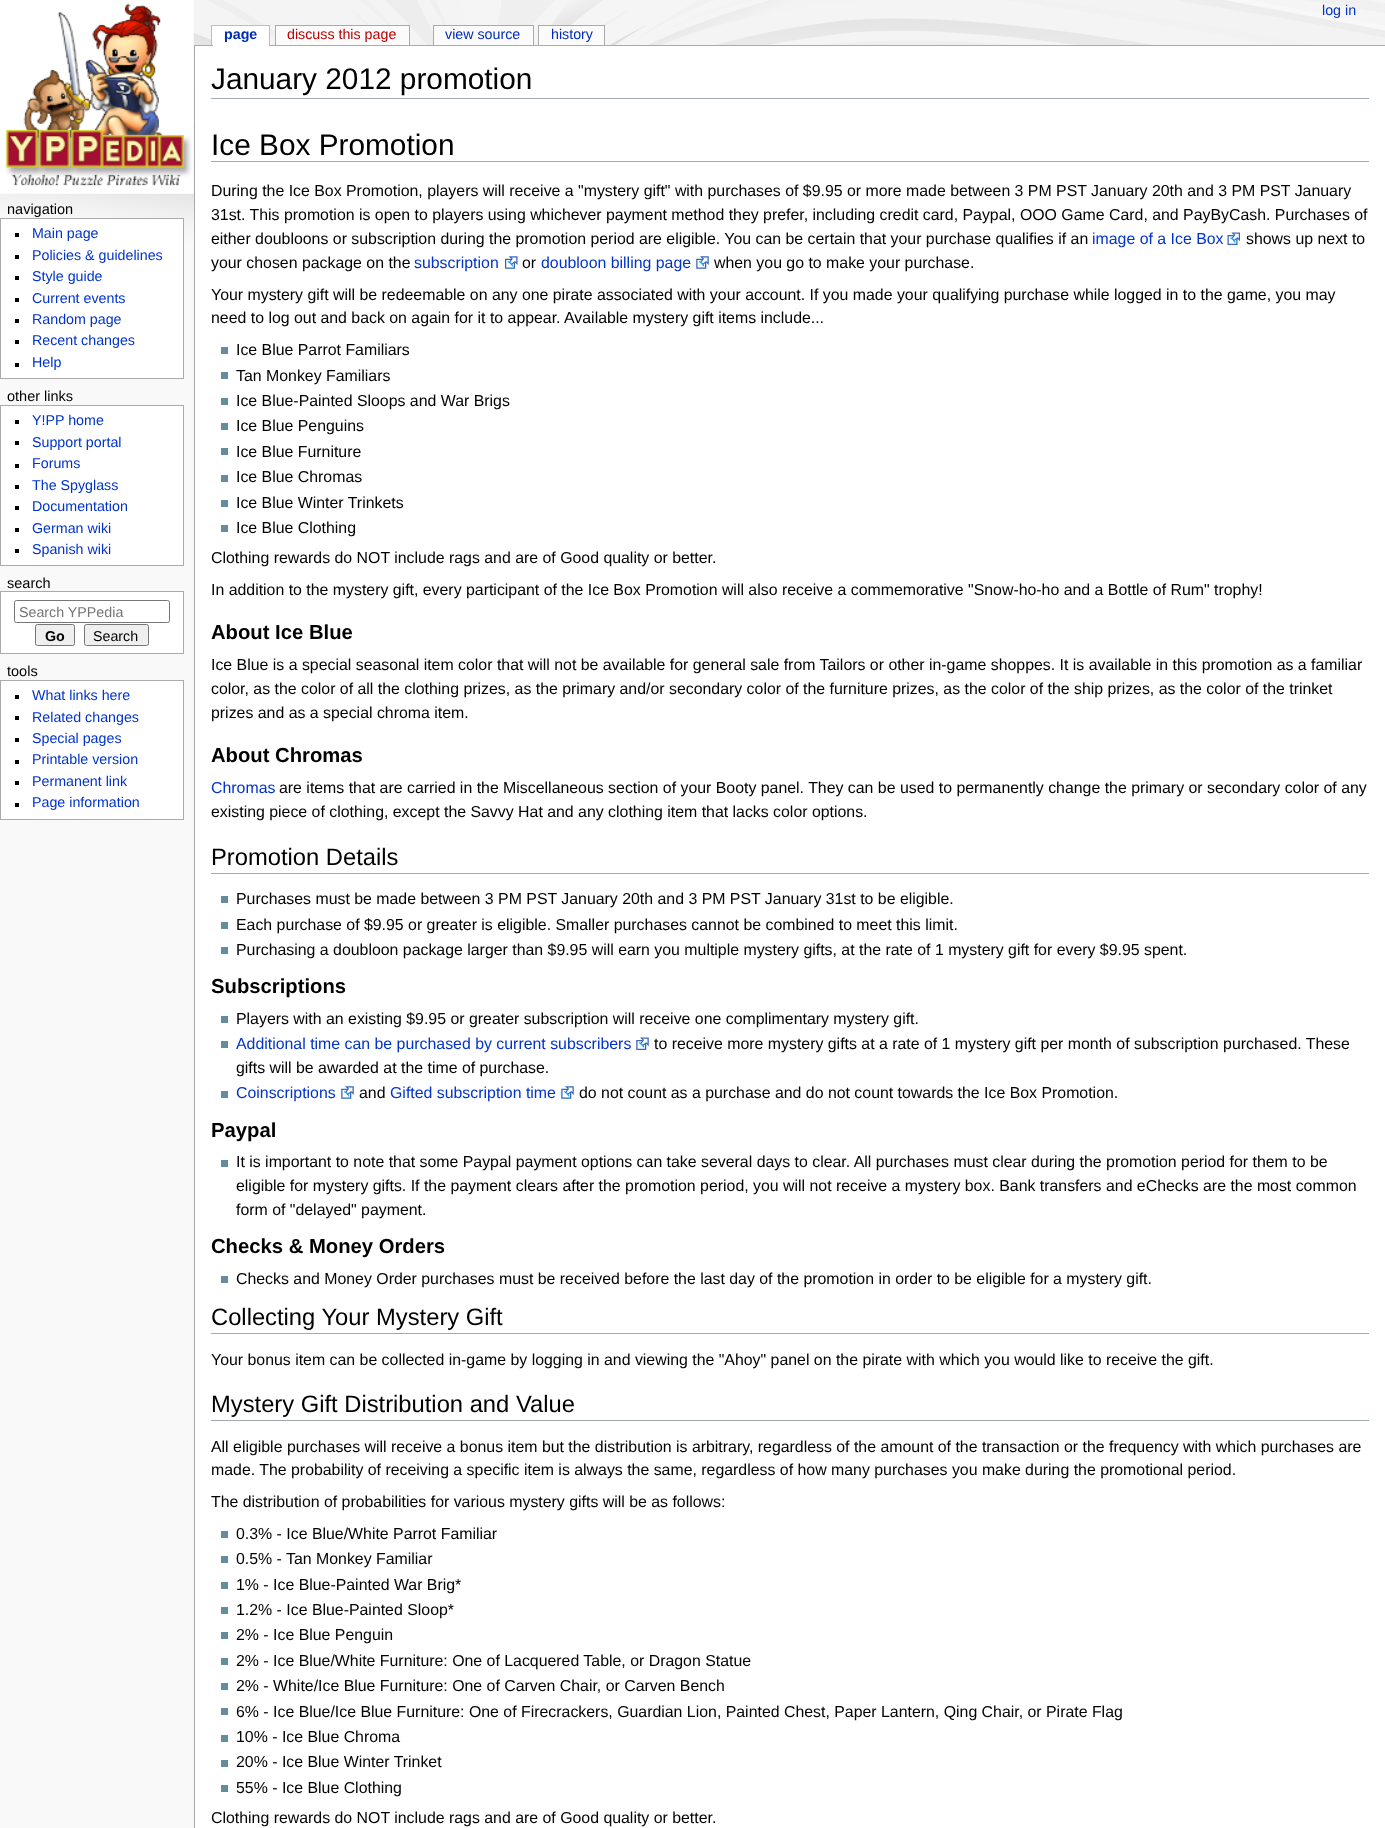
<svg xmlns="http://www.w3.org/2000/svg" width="1385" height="1828">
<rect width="100%" height="100%" fill="#f9f9f9"/>
<image x="0" y="0" width="1385" height="263" href="media/1.png"/>
<image x="0" y="0" width="194" height="194" href="media/2.png"/>
<text x="1322" y="15" style="font-family:Liberation Sans;font-size:14.25px;fill:#03c">log in</text>
<rect x="194" y="45" width="1191" height="1" fill="#aaa"/>
<rect x="213" y="26" width="56" height="20" fill="#fff"/>
<text x="224" y="39" style="font-family:Liberation Sans;font-size:14.25px;font-weight:bold;fill:#002bb8">page</text>
<rect x="212" y="26" width="1" height="19" fill="#fff"/>
<rect x="211" y="25" width="59" height="1" fill="#fabd23"/>
<rect x="269" y="25" width="1" height="20" fill="#fabd23"/>
<rect x="211" y="25" width="1" height="20" fill="#fabd23"/>
<rect x="276" y="26" width="133" height="19" fill="#fbfbfb"/>
<text x="287" y="39" style="font-family:Liberation Sans;font-size:14.25px;fill:#ba0000">discuss this page</text>
<rect x="275" y="25" width="135" height="1" fill="#aaa"/>
<rect x="409" y="25" width="1" height="20" fill="#aaa"/>
<rect x="275" y="25" width="1" height="20" fill="#aaa"/>
<rect x="434" y="26" width="99" height="19" fill="#fbfbfb"/>
<text x="445" y="39" style="font-family:Liberation Sans;font-size:14.25px;fill:#002bb8">view source</text>
<rect x="433" y="25" width="101" height="1" fill="#aaa"/>
<rect x="533" y="25" width="1" height="20" fill="#aaa"/>
<rect x="433" y="25" width="1" height="20" fill="#aaa"/>
<rect x="539" y="26" width="65" height="19" fill="#fbfbfb"/>
<text x="551" y="39" style="font-family:Liberation Sans;font-size:14.25px;fill:#002bb8">history</text>
<rect x="538" y="25" width="67" height="1" fill="#aaa"/>
<rect x="604" y="25" width="1" height="20" fill="#aaa"/>
<rect x="538" y="25" width="1" height="20" fill="#aaa"/>
<text x="7" y="214" style="font-family:Liberation Sans;font-size:14.5px;fill:#000">navigation</text>
<rect x="0.5" y="218.5" width="183" height="160" fill="#fff" stroke="#aaa"/>
<rect x="15" y="233" width="4" height="4" fill="#000"/>
<text x="32" y="238" style="font-family:Liberation Sans;font-size:14.25px;fill:#03c">Main page</text>
<rect x="15" y="255" width="4" height="4" fill="#000"/>
<text x="32" y="260" style="font-family:Liberation Sans;font-size:14.25px;fill:#03c">Policies &amp; guidelines</text>
<rect x="15" y="276" width="4" height="4" fill="#000"/>
<text x="32" y="281" style="font-family:Liberation Sans;font-size:14.25px;fill:#03c">Style guide</text>
<rect x="15" y="298" width="4" height="4" fill="#000"/>
<text x="32" y="303" style="font-family:Liberation Sans;font-size:14.25px;fill:#03c">Current events</text>
<rect x="15" y="319" width="4" height="4" fill="#000"/>
<text x="32" y="324" style="font-family:Liberation Sans;font-size:14.25px;fill:#03c">Random page</text>
<rect x="15" y="340" width="4" height="4" fill="#000"/>
<text x="32" y="345" style="font-family:Liberation Sans;font-size:14.25px;fill:#03c">Recent changes</text>
<rect x="15" y="363" width="4" height="4" fill="#000"/>
<text x="32" y="367" style="font-family:Liberation Sans;font-size:14.25px;fill:#03c">Help</text>
<text x="7" y="401" style="font-family:Liberation Sans;font-size:14.5px;fill:#000">other links</text>
<rect x="0.5" y="405.5" width="183" height="160" fill="#fff" stroke="#aaa"/>
<rect x="15" y="420" width="4" height="4" fill="#000"/>
<text x="32" y="425" style="font-family:Liberation Sans;font-size:14.25px;fill:#03c">Y!PP home</text>
<rect x="15" y="441" width="4" height="4" fill="#000"/>
<text x="32" y="447" style="font-family:Liberation Sans;font-size:14.25px;fill:#03c">Support portal</text>
<rect x="15" y="464" width="4" height="4" fill="#000"/>
<text x="32" y="468" style="font-family:Liberation Sans;font-size:14.25px;fill:#03c">Forums</text>
<rect x="15" y="485" width="4" height="4" fill="#000"/>
<text x="32" y="490" style="font-family:Liberation Sans;font-size:14.25px;fill:#03c">The Spyglass</text>
<rect x="15" y="506" width="4" height="4" fill="#000"/>
<text x="32" y="511" style="font-family:Liberation Sans;font-size:14.25px;fill:#03c">Documentation</text>
<rect x="15" y="528" width="4" height="4" fill="#000"/>
<text x="32" y="533" style="font-family:Liberation Sans;font-size:14.25px;fill:#03c">German wiki</text>
<rect x="15" y="549" width="4" height="4" fill="#000"/>
<text x="32" y="554" style="font-family:Liberation Sans;font-size:14.25px;fill:#03c">Spanish wiki</text>
<text x="7" y="588" style="font-family:Liberation Sans;font-size:14.5px;fill:#000">search</text>
<rect x="0.5" y="591.5" width="183" height="62" fill="#fff" stroke="#aaa"/>
<rect x="14.5" y="600.5" width="155" height="22" rx="2" fill="none" stroke="#767676"/>
<text x="19" y="617" style="font-family:Liberation Sans;font-size:14.25px;fill:#757575">Search YPPedia</text>
<rect x="35.5" y="624.5" width="39" height="21" rx="2" fill="#efefef" stroke="#767676"/>
<text x="45" y="641" style="font-family:Liberation Sans;font-size:14.25px;font-weight:bold;fill:#000">Go</text>
<rect x="84.5" y="624.5" width="64" height="21" rx="2" fill="#efefef" stroke="#767676"/>
<text x="93" y="641" style="font-family:Liberation Sans;font-size:14.25px;fill:#000">Search</text>
<text x="7" y="676" style="font-family:Liberation Sans;font-size:14.5px;fill:#000">tools</text>
<rect x="0.5" y="680.5" width="183" height="139" fill="#fff" stroke="#aaa"/>
<rect x="15" y="695" width="4" height="4" fill="#000"/>
<text x="32" y="700" style="font-family:Liberation Sans;font-size:14.25px;fill:#03c">What links here</text>
<rect x="15" y="716" width="4" height="4" fill="#000"/>
<text x="32" y="722" style="font-family:Liberation Sans;font-size:14.25px;fill:#03c">Related changes</text>
<rect x="15" y="738" width="4" height="4" fill="#000"/>
<text x="32" y="743" style="font-family:Liberation Sans;font-size:14.25px;fill:#03c">Special pages</text>
<rect x="15" y="760" width="4" height="4" fill="#000"/>
<text x="32" y="764" style="font-family:Liberation Sans;font-size:14.25px;fill:#03c">Printable version</text>
<rect x="15" y="781" width="4" height="4" fill="#000"/>
<text x="32" y="786" style="font-family:Liberation Sans;font-size:14.25px;fill:#03c">Permanent link</text>
<rect x="15" y="803" width="4" height="4" fill="#000"/>
<text x="32" y="807" style="font-family:Liberation Sans;font-size:14.25px;fill:#03c">Page information</text>
<rect x="195" y="46" width="1190" height="1782" fill="#fff"/>
<rect x="194" y="45" width="1" height="1783" fill="#aaa"/>
<rect x="211" y="98" width="1158" height="1" fill="#a2a9b1"/>
<text x="211" y="89" style="font-family:Liberation Sans;font-size:29.8px;fill:#000">January 2012 promotion</text>
<rect x="211" y="161" width="1158" height="1" fill="#a2a9b1"/>
<text x="211" y="155" style="font-family:Liberation Sans;font-size:29.8px;fill:#000">Ice Box Promotion</text>
<text x="211" y="196" style="font-family:Liberation Sans;font-size:15.88px;fill:#000">During the Ice Box Promotion, players will receive a "mystery gift" with purchases of $9.95 or more made between 3 PM PST January 20th and 3 PM PST January</text>
<text x="211" y="220" style="font-family:Liberation Sans;font-size:15.88px;fill:#000">31st. This promotion is open to players using whichever payment method they prefer, including credit card, Paypal, OOO Game Card, and PayByCash. Purchases of</text>
<text x="211" y="244" style="font-family:Liberation Sans;font-size:15.88px;fill:#000">either doubloons or subscription during the promotion period are eligible. You can be certain that your purchase qualifies if an</text>
<text x="1092" y="244" style="font-family:Liberation Sans;font-size:15.88px;fill:#03c">image of a Ice Box</text>
<image x="1227" y="232" width="13" height="13" href="media/3.png"/>
<text x="1246" y="244" style="font-family:Liberation Sans;font-size:15.88px;fill:#000">shows up next to</text>
<text x="211" y="268" style="font-family:Liberation Sans;font-size:15.88px;fill:#000">your chosen package on the</text>
<text x="414" y="268" style="font-family:Liberation Sans;font-size:15.88px;fill:#03c">subscription</text>
<image x="505" y="256" width="13" height="13" href="media/4.png"/>
<text x="522" y="268" style="font-family:Liberation Sans;font-size:15.88px;fill:#000">or</text>
<text x="541" y="268" style="font-family:Liberation Sans;font-size:15.88px;fill:#03c">doubloon billing page</text>
<image x="696" y="256" width="13" height="13" href="media/5.png"/>
<text x="714" y="268" style="font-family:Liberation Sans;font-size:15.88px;fill:#000">when you go to make your purchase.</text>
<text x="211" y="300" style="font-family:Liberation Sans;font-size:15.88px;fill:#000">Your mystery gift will be redeemable on any one pirate associated with your account. If you made your qualifying purchase while logged in to the game, you may</text>
<text x="211" y="323" style="font-family:Liberation Sans;font-size:15.88px;fill:#000">need to log out and back on again for it to appear. Available mystery gift items include...</text>
<rect x="221" y="347" width="7" height="7" fill="#638c9c"/>
<text x="236" y="355" style="font-family:Liberation Sans;font-size:15.88px;fill:#000">Ice Blue Parrot Familiars</text>
<rect x="221" y="372" width="7" height="7" fill="#638c9c"/>
<text x="236" y="381" style="font-family:Liberation Sans;font-size:15.88px;fill:#000">Tan Monkey Familiars</text>
<rect x="221" y="398" width="7" height="7" fill="#638c9c"/>
<text x="236" y="406" style="font-family:Liberation Sans;font-size:15.88px;fill:#000">Ice Blue-Painted Sloops and War Brigs</text>
<rect x="221" y="423" width="7" height="7" fill="#638c9c"/>
<text x="236" y="431" style="font-family:Liberation Sans;font-size:15.88px;fill:#000">Ice Blue Penguins</text>
<rect x="221" y="448" width="7" height="7" fill="#638c9c"/>
<text x="236" y="457" style="font-family:Liberation Sans;font-size:15.88px;fill:#000">Ice Blue Furniture</text>
<rect x="221" y="475" width="7" height="7" fill="#638c9c"/>
<text x="236" y="482" style="font-family:Liberation Sans;font-size:15.88px;fill:#000">Ice Blue Chromas</text>
<rect x="221" y="500" width="7" height="7" fill="#638c9c"/>
<text x="236" y="508" style="font-family:Liberation Sans;font-size:15.88px;fill:#000">Ice Blue Winter Trinkets</text>
<rect x="221" y="525" width="7" height="7" fill="#638c9c"/>
<text x="236" y="533" style="font-family:Liberation Sans;font-size:15.88px;fill:#000">Ice Blue Clothing</text>
<text x="211" y="563" style="font-family:Liberation Sans;font-size:15.88px;fill:#000">Clothing rewards do NOT include rags and are of Good quality or better.</text>
<text x="211" y="595" style="font-family:Liberation Sans;font-size:15.88px;fill:#000">In addition to the mystery gift, every participant of the Ice Box Promotion will also receive a commemorative "Snow-ho-ho and a Bottle of Rum" trophy!</text>
<text x="211" y="639" style="font-family:Liberation Sans;font-size:20.25px;font-weight:bold;fill:#000">About Ice Blue</text>
<text x="211" y="670" style="font-family:Liberation Sans;font-size:15.88px;fill:#000">Ice Blue is a special seasonal item color that will not be available for general sale from Tailors or other in-game shoppes. It is available in this promotion as a familiar</text>
<text x="211" y="694" style="font-family:Liberation Sans;font-size:15.88px;fill:#000">color, as the color of all the clothing prizes, as the primary and/or secondary color of the furniture prizes, as the color of the ship prizes, as the color of the trinket</text>
<text x="211" y="718" style="font-family:Liberation Sans;font-size:15.88px;fill:#000">prizes and as a special chroma item.</text>
<text x="211" y="762" style="font-family:Liberation Sans;font-size:20.25px;font-weight:bold;fill:#000">About Chromas</text>
<text x="211" y="793" style="font-family:Liberation Sans;font-size:15.88px;fill:#03c">Chromas</text>
<text x="279" y="793" style="font-family:Liberation Sans;font-size:15.88px;fill:#000">are items that are carried in the Miscellaneous section of your Booty panel. They can be used to permanently change the primary or secondary color of any</text>
<text x="211" y="817" style="font-family:Liberation Sans;font-size:15.88px;fill:#000">existing piece of clothing, except the Savvy Hat and any clothing item that lacks color options.</text>
<rect x="211" y="873" width="1158" height="1" fill="#a2a9b1"/>
<text x="211" y="865" style="font-family:Liberation Sans;font-size:23.75px;fill:#000">Promotion Details</text>
<rect x="221" y="896" width="7" height="7" fill="#638c9c"/>
<text x="236" y="904" style="font-family:Liberation Sans;font-size:15.88px;fill:#000">Purchases must be made between 3 PM PST January 20th and 3 PM PST January 31st to be eligible.</text>
<rect x="221" y="922" width="7" height="7" fill="#638c9c"/>
<text x="236" y="930" style="font-family:Liberation Sans;font-size:15.88px;fill:#000">Each purchase of $9.95 or greater is eligible. Smaller purchases cannot be combined to meet this limit.</text>
<rect x="221" y="947" width="7" height="7" fill="#638c9c"/>
<text x="236" y="955" style="font-family:Liberation Sans;font-size:15.88px;fill:#000">Purchasing a doubloon package larger than $9.95 will earn you multiple mystery gifts, at the rate of 1 mystery gift for every $9.95 spent.</text>
<text x="211" y="993" style="font-family:Liberation Sans;font-size:20.25px;font-weight:bold;fill:#000">Subscriptions</text>
<rect x="221" y="1016" width="7" height="7" fill="#638c9c"/>
<text x="236" y="1024" style="font-family:Liberation Sans;font-size:15.88px;fill:#000">Players with an existing $9.95 or greater subscription will receive one complimentary mystery gift.</text>
<rect x="221" y="1041" width="7" height="7" fill="#638c9c"/>
<text x="236" y="1049" style="font-family:Liberation Sans;font-size:15.88px;fill:#03c">Additional time can be purchased by current subscribers</text>
<image x="636" y="1037" width="13" height="13" href="media/6.png"/>
<text x="654" y="1049" style="font-family:Liberation Sans;font-size:15.88px;fill:#000">to receive more mystery gifts at a rate of 1 mystery gift per month of subscription purchased. These</text>
<text x="236" y="1073" style="font-family:Liberation Sans;font-size:15.88px;fill:#000">gifts will be awarded at the time of purchase.</text>
<rect x="221" y="1091" width="7" height="7" fill="#638c9c"/>
<text x="236" y="1098" style="font-family:Liberation Sans;font-size:15.88px;fill:#03c">Coinscriptions</text>
<image x="341" y="1086" width="13" height="13" href="media/5.png"/>
<text x="359" y="1098" style="font-family:Liberation Sans;font-size:15.88px;fill:#000">and</text>
<text x="390" y="1098" style="font-family:Liberation Sans;font-size:15.88px;fill:#03c">Gifted subscription time</text>
<image x="561" y="1086" width="13" height="13" href="media/5.png"/>
<text x="579" y="1098" style="font-family:Liberation Sans;font-size:15.88px;fill:#000">do not count as a purchase and do not count towards the Ice Box Promotion.</text>
<text x="211" y="1137" style="font-family:Liberation Sans;font-size:20.25px;font-weight:bold;fill:#000">Paypal</text>
<rect x="221" y="1160" width="7" height="7" fill="#638c9c"/>
<text x="236" y="1167" style="font-family:Liberation Sans;font-size:15.88px;fill:#000">It is important to note that some Paypal payment options can take several days to clear. All purchases must clear during the promotion period for them to be</text>
<text x="236" y="1191" style="font-family:Liberation Sans;font-size:15.88px;fill:#000">eligible for mystery gifts. If the payment clears after the promotion period, you will not receive a mystery box. Bank transfers and eChecks are the most common</text>
<text x="236" y="1215" style="font-family:Liberation Sans;font-size:15.88px;fill:#000">form of "delayed" payment.</text>
<text x="211" y="1253" style="font-family:Liberation Sans;font-size:20.25px;font-weight:bold;fill:#000">Checks &amp; Money Orders</text>
<rect x="221" y="1276" width="7" height="7" fill="#638c9c"/>
<text x="236" y="1284" style="font-family:Liberation Sans;font-size:15.88px;fill:#000">Checks and Money Order purchases must be received before the last day of the promotion in order to be eligible for a mystery gift.</text>
<rect x="211" y="1333" width="1158" height="1" fill="#a2a9b1"/>
<text x="211" y="1325" style="font-family:Liberation Sans;font-size:23.75px;fill:#000">Collecting Your Mystery Gift</text>
<text x="211" y="1365" style="font-family:Liberation Sans;font-size:15.88px;fill:#000">Your bonus item can be collected in-game by logging in and viewing the "Ahoy" panel on the pirate with which you would like to receive the gift.</text>
<rect x="211" y="1420" width="1158" height="1" fill="#a2a9b1"/>
<text x="211" y="1412" style="font-family:Liberation Sans;font-size:23.75px;fill:#000">Mystery Gift Distribution and Value</text>
<text x="211" y="1452" style="font-family:Liberation Sans;font-size:15.88px;fill:#000">All eligible purchases will receive a bonus item but the distribution is arbitrary, regardless of the amount of the transaction or the frequency with which purchases are</text>
<text x="211" y="1475" style="font-family:Liberation Sans;font-size:15.88px;fill:#000">made. The probability of receiving a specific item is always the same, regardless of how many purchases you make during the promotional period.</text>
<text x="211" y="1507" style="font-family:Liberation Sans;font-size:15.88px;fill:#000">The distribution of probabilities for various mystery gifts will be as follows:</text>
<rect x="221" y="1531" width="7" height="7" fill="#638c9c"/>
<text x="236" y="1539" style="font-family:Liberation Sans;font-size:15.88px;fill:#000">0.3% - Ice Blue/White Parrot Familiar</text>
<rect x="221" y="1556" width="7" height="7" fill="#638c9c"/>
<text x="236" y="1564" style="font-family:Liberation Sans;font-size:15.88px;fill:#000">0.5% - Tan Monkey Familiar</text>
<rect x="221" y="1582" width="7" height="7" fill="#638c9c"/>
<text x="236" y="1590" style="font-family:Liberation Sans;font-size:15.88px;fill:#000">1% - Ice Blue-Painted War Brig*</text>
<rect x="221" y="1607" width="7" height="7" fill="#638c9c"/>
<text x="236" y="1615" style="font-family:Liberation Sans;font-size:15.88px;fill:#000">1.2% - Ice Blue-Painted Sloop*</text>
<rect x="221" y="1632" width="7" height="7" fill="#638c9c"/>
<text x="236" y="1640" style="font-family:Liberation Sans;font-size:15.88px;fill:#000">2% - Ice Blue Penguin</text>
<rect x="221" y="1658" width="7" height="7" fill="#638c9c"/>
<text x="236" y="1666" style="font-family:Liberation Sans;font-size:15.88px;fill:#000">2% - Ice Blue/White Furniture: One of Lacquered Table, or Dragon Statue</text>
<rect x="221" y="1683" width="7" height="7" fill="#638c9c"/>
<text x="236" y="1691" style="font-family:Liberation Sans;font-size:15.88px;fill:#000">2% - White/Ice Blue Furniture: One of Carven Chair, or Carven Bench</text>
<rect x="221" y="1708" width="7" height="7" fill="#638c9c"/>
<text x="236" y="1717" style="font-family:Liberation Sans;font-size:15.88px;fill:#000">6% - Ice Blue/Ice Blue Furniture: One of Firecrackers, Guardian Lion, Painted Chest, Paper Lantern, Qing Chair, or Pirate Flag</text>
<rect x="221" y="1735" width="7" height="7" fill="#638c9c"/>
<text x="236" y="1742" style="font-family:Liberation Sans;font-size:15.88px;fill:#000">10% - Ice Blue Chroma</text>
<rect x="221" y="1760" width="7" height="7" fill="#638c9c"/>
<text x="236" y="1767" style="font-family:Liberation Sans;font-size:15.88px;fill:#000">20% - Ice Blue Winter Trinket</text>
<rect x="221" y="1785" width="7" height="7" fill="#638c9c"/>
<text x="236" y="1793" style="font-family:Liberation Sans;font-size:15.88px;fill:#000">55% - Ice Blue Clothing</text>
<text x="211" y="1823" style="font-family:Liberation Sans;font-size:15.88px;fill:#000">Clothing rewards do NOT include rags and are of Good quality or better.</text>
</svg>
